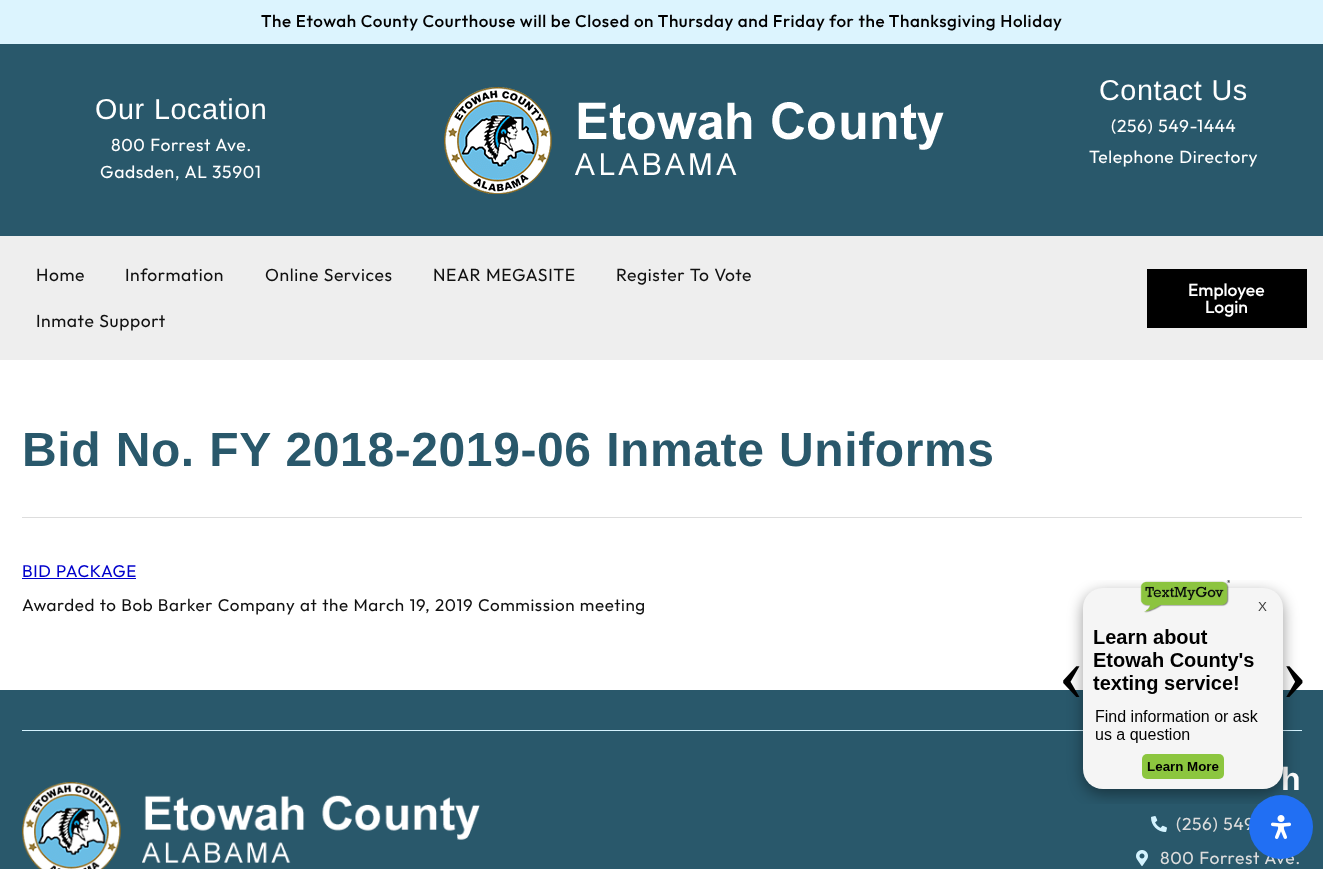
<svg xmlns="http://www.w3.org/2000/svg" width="1323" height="869">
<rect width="100%" height="100%" fill="#eee"/>
<rect width="1323" height="44" fill="#dcf4fe"/>
<text x="261" y="27" style="font-family:Outfit;font-size:17px;font-weight:500;letter-spacing:0.6px;fill:#000">The Etowah County Courthouse will be Closed on Thursday and Friday for the Thanksgiving Holiday</text>
<rect y="44" width="1323" height="192" fill="#29586b"/>
<text x="95" y="119" word-spacing="0.6" style="font-family:Liberation Sans;font-size:28.75px;letter-spacing:0.6px;fill:#fff">Our Location</text>
<text x="111" y="151" word-spacing="0.6" style="font-family:Outfit;font-size:17.5px;letter-spacing:0.6px;fill:#fff">800 Forrest Ave.</text>
<text x="100" y="178" word-spacing="0.6" style="font-family:Outfit;font-size:17.5px;letter-spacing:0.6px;fill:#fff">Gadsden, AL 35901</text>
<image x="444" y="87" width="500" height="107" href="media/1.png"/>
<text x="1099" y="100" word-spacing="0.6" style="font-family:Liberation Sans;font-size:28.75px;letter-spacing:0.6px;fill:#fff">Contact Us</text>
<text x="1111" y="132" word-spacing="0.6" style="font-family:Outfit;font-size:17.5px;letter-spacing:0.6px;fill:#fff">(256) 549-1444</text>
<text x="1089" y="163" word-spacing="0.6" style="font-family:Outfit;font-size:17.5px;letter-spacing:0.6px;fill:#fff">Telephone Directory</text>
<text x="36" y="281" style="font-family:Outfit;font-size:17.5px;letter-spacing:0.6px;fill:#111">Home</text>
<text x="125" y="281" style="font-family:Outfit;font-size:17.5px;letter-spacing:0.6px;fill:#111">Information</text>
<text x="265" y="281" word-spacing="0.6" style="font-family:Outfit;font-size:17.5px;letter-spacing:0.6px;fill:#111">Online Services</text>
<text x="433" y="281" word-spacing="0.6" style="font-family:Outfit;font-size:17.5px;letter-spacing:0.6px;fill:#111">NEAR MEGASITE</text>
<text x="616" y="281" word-spacing="0.6" style="font-family:Outfit;font-size:17.5px;letter-spacing:0.6px;fill:#111">Register To Vote</text>
<text x="36" y="327" word-spacing="0.6" style="font-family:Outfit;font-size:17.5px;letter-spacing:0.6px;fill:#111">Inmate Support</text>
<rect x="1147" y="269" width="160" height="59" fill="#000"/>
<text x="1188" y="296" style="font-family:Outfit;font-size:17.5px;font-weight:500;fill:#fff">Employee</text>
<text x="1205" y="313" style="font-family:Outfit;font-size:17.5px;font-weight:500;fill:#fff">Login</text>
<rect y="360" width="1323" height="330" fill="#fff"/>
<text x="22" y="466" word-spacing="0.6" style="font-family:Liberation Sans;font-size:48px;font-weight:bold;letter-spacing:0.6px;fill:#29586b">Bid No. FY 2018-2019-06 Inmate Uniforms</text>
<rect x="22" y="517" width="1280" height="1" fill="#ddd"/>
<text x="22" y="577" word-spacing="0.6" style="font-family:Outfit;font-size:17px;letter-spacing:0.6px;fill:#00c">BID PACKAGE</text>
<rect x="22" y="578" width="114" height="1" fill="#00c"/>
<text x="22" y="611" word-spacing="0.6" style="font-family:Outfit;font-size:17px;letter-spacing:0.6px;fill:#111">Awarded to Bob Barker Company at the March 19, 2019 Commission meeting</text>
<rect y="690" width="1323" height="179" fill="#29586b"/>
<rect x="22" y="730" width="1280" height="1" fill="#d4f3ff"/>
<text x="1281" y="790" word-spacing="0.6" style="font-family:Liberation Sans;font-size:32px;font-weight:bold;letter-spacing:0.6px;fill:#fff">h</text>
<image x="1063" y="580" width="240" height="224" href="media/2.png"/>
<image x="22" y="782" width="458" height="87" href="media/3.png"/>
<image x="1151" y="816" width="16" height="16" href="media/4.png"/>
<text x="1176" y="830" word-spacing="0.6" style="font-family:Outfit;font-size:17.5px;letter-spacing:0.6px;fill:#ddd">(256) 549</text>
<image x="1136" y="850" width="12" height="16" href="media/5.png"/>
<text x="1160" y="864" word-spacing="0.6" style="font-family:Outfit;font-size:17.5px;letter-spacing:0.6px;fill:#ddd">800 Forrest Ave.</text>
<circle cx="1281" cy="827" r="32" fill="#216ff3"/>
<image x="1271" y="815" width="20" height="24" href="media/6.png"/>
</svg>
